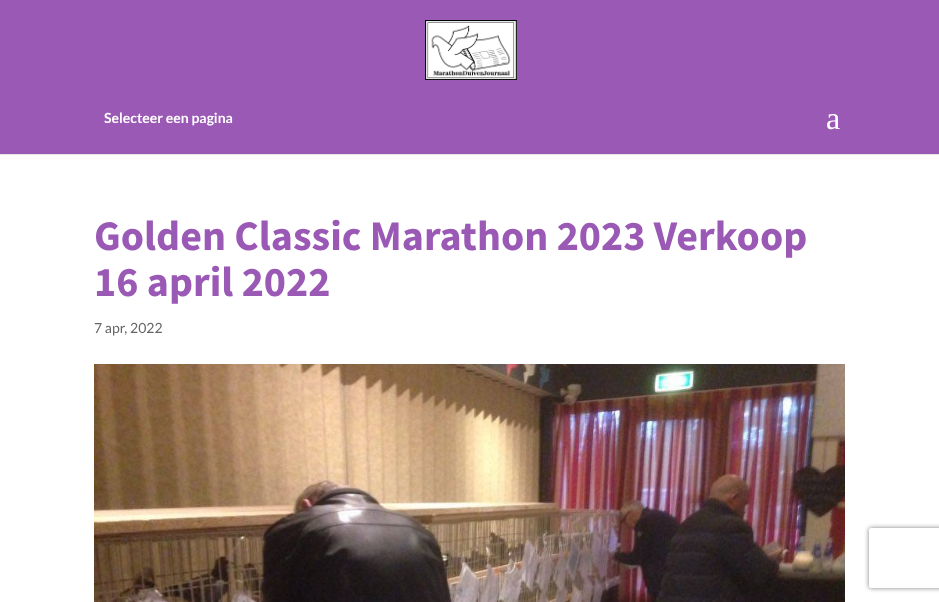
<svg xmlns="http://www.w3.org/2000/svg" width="939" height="602">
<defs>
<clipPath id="clip1"><path d="M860 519h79v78h-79zm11 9h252c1 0 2 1 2 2v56c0 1-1 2-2 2h-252c-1 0-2-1-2-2v-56c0-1 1-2 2-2z" clip-rule="evenodd"/></clipPath>
</defs>
<rect width="100%" height="100%" fill="#fff"/>
<rect y="154" width="939" height="1" fill="#e6e6e6"/>
<rect width="939" height="154" fill="#9b59b6"/>
<image x="425" y="20" width="92" height="60" href="media/1.png"/>
<text x="104" y="123" style="font-family:Lato;font-size:14px;font-weight:bold;fill:#fff">Selecteer een pagina</text>
<text x="826" y="129" style="font-family:Liberation Serif;font-size:32px;fill:#fff">a</text>
<text x="94" y="250" style="font-family:Source Sans Pro;font-size:42px;font-weight:bold;fill:#9b59b6">Golden Classic Marathon 2023 Verkoop</text>
<text x="94" y="296" style="font-family:Source Sans Pro;font-size:42px;font-weight:bold;fill:#9b59b6">16 april 2022</text>
<text x="94" y="333" style="font-family:Lato;font-size:14px;fill:#666">7 apr, 2022</text>
<image x="94" y="364" width="751" height="238" href="media/2.png"/>
<g clip-path="url(#clip1)">
<rect x="869" y="528" width="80" height="60" rx="2" fill="#808080" filter="blur(2.5px)"/>
</g>
</svg>
